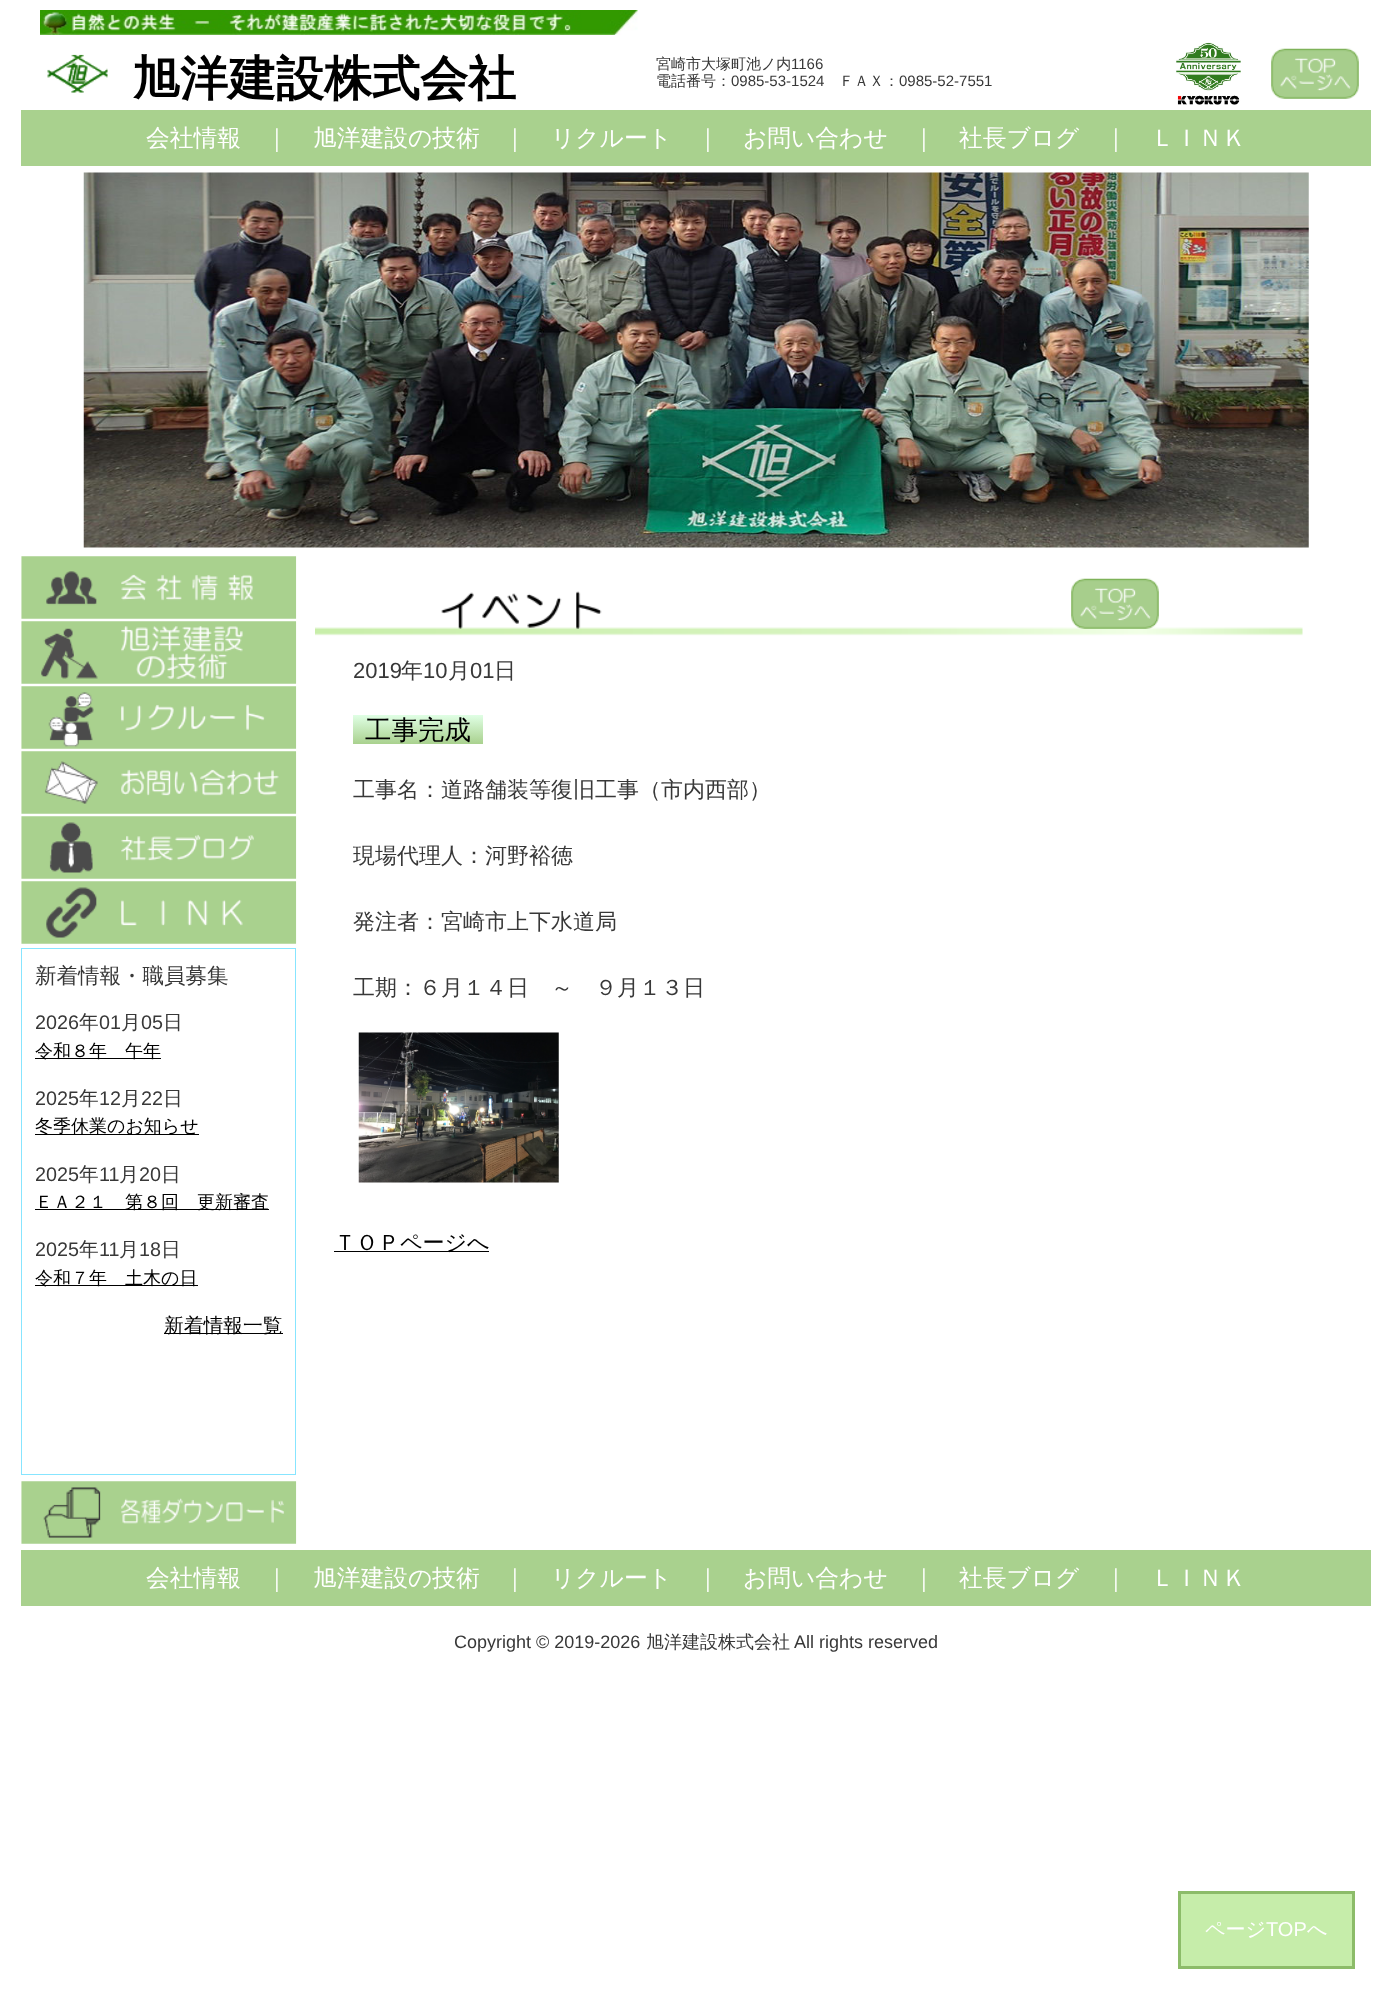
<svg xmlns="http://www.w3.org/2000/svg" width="1392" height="2006">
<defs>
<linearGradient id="g1" gradientUnits="userSpaceOnUse" x1="418" y1="715" x2="418" y2="744"><stop offset="0" stop-color="#e0ffe5"/><stop offset="1" stop-color="#a9d18e"/></linearGradient>
</defs>
<rect width="100%" height="100%" fill="#fff"/>
<image x="40" y="10" width="598" height="25" href="media/1.png"/>
<image x="47" y="54" width="61" height="39" href="media/2.png"/>
<text x="132" y="95" style="font-family:WenQuanYi Zen Hei;font-size:48px;font-weight:bold;fill:#000">旭洋建設株式会社</text>
<text x="656" y="69" style="font-family:WenQuanYi Zen Hei;font-size:15px;font-weight:500;fill:#383838">宮崎市大塚町池ノ内</text>
<text x="791" y="69" style="font-family:Liberation Sans;font-size:15px;fill:#383838">1166</text>
<text x="656" y="86" style="font-family:WenQuanYi Zen Hei;font-size:15px;font-weight:500;fill:#383838">電話番号：</text>
<text x="731" y="86" style="font-family:Liberation Sans;font-size:15px;fill:#383838">0985-53-1524</text>
<text x="839" y="86" style="font-family:WenQuanYi Zen Hei;font-size:15px;font-weight:500;fill:#383838">ＦＡＸ：</text>
<text x="899" y="86" style="font-family:Liberation Sans;font-size:15px;fill:#383838">0985-52-7551</text>
<image x="1176" y="42" width="65" height="63" href="media/3.png"/>
<image x="1271" y="48" width="88" height="51" href="media/4.png"/>
<rect x="21" y="110" width="1350" height="56" fill="#a9d18e"/>
<text x="146" y="146" style="font-family:WenQuanYi Zen Hei;font-size:23.75px;font-weight:500;fill:#fff">会社情報</text>
<text x="265" y="146" style="font-family:WenQuanYi Zen Hei;font-size:23.75px;font-weight:500;fill:#fff">｜</text>
<text x="313" y="146" style="font-family:WenQuanYi Zen Hei;font-size:23.75px;font-weight:500;fill:#fff">旭洋建設の技術</text>
<text x="503" y="146" style="font-family:WenQuanYi Zen Hei;font-size:23.75px;font-weight:500;fill:#fff">｜</text>
<text x="551" y="146" style="font-family:WenQuanYi Zen Hei;font-size:23.75px;font-weight:500;fill:#fff">リクルート</text>
<text x="696" y="146" style="font-family:WenQuanYi Zen Hei;font-size:23.75px;font-weight:500;fill:#fff">｜</text>
<text x="743" y="146" style="font-family:WenQuanYi Zen Hei;font-size:23.75px;font-weight:500;fill:#fff">お問い合わせ</text>
<text x="912" y="146" style="font-family:WenQuanYi Zen Hei;font-size:23.75px;font-weight:500;fill:#fff">｜</text>
<text x="959" y="146" style="font-family:WenQuanYi Zen Hei;font-size:23.75px;font-weight:500;fill:#fff">社長ブログ</text>
<text x="1104" y="146" style="font-family:WenQuanYi Zen Hei;font-size:23.75px;font-weight:500;fill:#fff">｜</text>
<text x="1151" y="146" style="font-family:WenQuanYi Zen Hei;font-size:23.75px;font-weight:500;fill:#fff">ＬＩＮＫ</text>
<image x="83" y="172" width="1226" height="376" href="media/5.png"/>
<image x="21" y="556" width="276" height="63" href="media/6.png"/>
<image x="21" y="621" width="276" height="63" href="media/7.png"/>
<image x="21" y="686" width="276" height="63" href="media/8.png"/>
<image x="21" y="751" width="276" height="63" href="media/9.png"/>
<image x="21" y="816" width="276" height="63" href="media/10.png"/>
<image x="21" y="881" width="276" height="63" href="media/11.png"/>
<rect x="21.5" y="948.5" width="274" height="526" fill="none" stroke="#87e5ff"/>
<text x="35" y="983" style="font-family:WenQuanYi Zen Hei;font-size:21.5px;font-weight:500;fill:#383838">新着情報・職員募集</text>
<text x="35" y="1029" style="font-family:Liberation Sans;font-size:19.75px;fill:#383838">2026</text>
<text x="79" y="1029" style="font-family:WenQuanYi Zen Hei;font-size:19.75px;font-weight:500;fill:#383838">年</text>
<text x="99" y="1029" style="font-family:Liberation Sans;font-size:19.75px;fill:#383838">01</text>
<text x="121" y="1029" style="font-family:WenQuanYi Zen Hei;font-size:19.75px;font-weight:500;fill:#383838">月</text>
<text x="141" y="1029" style="font-family:Liberation Sans;font-size:19.75px;fill:#383838">05</text>
<text x="163" y="1029" style="font-family:WenQuanYi Zen Hei;font-size:19.75px;font-weight:500;fill:#383838">日</text>
<rect x="35" y="1058" width="126" height="1" fill="#000"/>
<text x="35" y="1057" style="font-family:WenQuanYi Zen Hei;font-size:18px;font-weight:500;fill:#000">令和８年　午年</text>
<text x="35" y="1105" style="font-family:Liberation Sans;font-size:19.75px;fill:#383838">2025</text>
<text x="79" y="1105" style="font-family:WenQuanYi Zen Hei;font-size:19.75px;font-weight:500;fill:#383838">年</text>
<text x="99" y="1105" style="font-family:Liberation Sans;font-size:19.75px;fill:#383838">12</text>
<text x="121" y="1105" style="font-family:WenQuanYi Zen Hei;font-size:19.75px;font-weight:500;fill:#383838">月</text>
<text x="141" y="1105" style="font-family:Liberation Sans;font-size:19.75px;fill:#383838">22</text>
<text x="163" y="1105" style="font-family:WenQuanYi Zen Hei;font-size:19.75px;font-weight:500;fill:#383838">日</text>
<rect x="35" y="1134" width="164" height="1" fill="#000"/>
<text x="35" y="1132" style="font-family:WenQuanYi Zen Hei;font-size:18px;font-weight:500;fill:#000">冬季休業のお知らせ</text>
<text x="35" y="1181" style="font-family:Liberation Sans;font-size:19.75px;fill:#383838">2025</text>
<text x="79" y="1181" style="font-family:WenQuanYi Zen Hei;font-size:19.75px;font-weight:500;fill:#383838">年</text>
<text x="99" y="1181" style="font-family:Liberation Sans;font-size:19.75px;fill:#383838">11</text>
<text x="119" y="1181" style="font-family:WenQuanYi Zen Hei;font-size:19.75px;font-weight:500;fill:#383838">月</text>
<text x="139" y="1181" style="font-family:Liberation Sans;font-size:19.75px;fill:#383838">20</text>
<text x="161" y="1181" style="font-family:WenQuanYi Zen Hei;font-size:19.75px;font-weight:500;fill:#383838">日</text>
<rect x="35" y="1209" width="234" height="1" fill="#000"/>
<text x="35" y="1208" style="font-family:WenQuanYi Zen Hei;font-size:18px;font-weight:500;fill:#000">ＥＡ２１　第８回　更新審査</text>
<text x="35" y="1256" style="font-family:Liberation Sans;font-size:19.75px;fill:#383838">2025</text>
<text x="79" y="1256" style="font-family:WenQuanYi Zen Hei;font-size:19.75px;font-weight:500;fill:#383838">年</text>
<text x="99" y="1256" style="font-family:Liberation Sans;font-size:19.75px;fill:#383838">11</text>
<text x="119" y="1256" style="font-family:WenQuanYi Zen Hei;font-size:19.75px;font-weight:500;fill:#383838">月</text>
<text x="139" y="1256" style="font-family:Liberation Sans;font-size:19.75px;fill:#383838">18</text>
<text x="161" y="1256" style="font-family:WenQuanYi Zen Hei;font-size:19.75px;font-weight:500;fill:#383838">日</text>
<rect x="35" y="1285" width="163" height="1" fill="#000"/>
<text x="35" y="1284" style="font-family:WenQuanYi Zen Hei;font-size:18px;font-weight:500;fill:#000">令和７年　土木の日</text>
<rect x="164" y="1333" width="119" height="1" fill="#000"/>
<text x="164" y="1332" style="font-family:WenQuanYi Zen Hei;font-size:19.75px;font-weight:500;fill:#000">新着情報一覧</text>
<image x="21" y="1481" width="276" height="63" href="media/12.png"/>
<image x="315" y="591" width="988" height="45" href="media/14.png"/>
<image x="1071" y="578" width="88" height="51" href="media/13.png"/>
<text x="353" y="678" style="font-family:Liberation Sans;font-size:22px;fill:#383838">2019</text>
<text x="401" y="678" style="font-family:WenQuanYi Zen Hei;font-size:22px;font-weight:500;fill:#383838">年</text>
<text x="423" y="678" style="font-family:Liberation Sans;font-size:22px;fill:#383838">10</text>
<text x="448" y="678" style="font-family:WenQuanYi Zen Hei;font-size:22px;font-weight:500;fill:#383838">月</text>
<text x="470" y="678" style="font-family:Liberation Sans;font-size:22px;fill:#383838">01</text>
<text x="494" y="678" style="font-family:WenQuanYi Zen Hei;font-size:22px;font-weight:500;fill:#383838">日</text>
<rect x="353" y="715" width="130" height="29" fill="url(#g1)"/>
<text x="365" y="739" style="font-family:WenQuanYi Zen Hei;font-size:26.5px;font-weight:500;fill:#000">工事完成</text>
<text x="353" y="797" style="font-family:WenQuanYi Zen Hei;font-size:22px;font-weight:500;fill:#383838">工事名：道路舗装等復旧工事（市内西部）</text>
<text x="353" y="863" style="font-family:WenQuanYi Zen Hei;font-size:22px;font-weight:500;fill:#383838">現場代理人：河野裕徳</text>
<text x="353" y="929" style="font-family:WenQuanYi Zen Hei;font-size:22px;font-weight:500;fill:#383838">発注者：宮崎市上下水道局</text>
<text x="353" y="995" style="font-family:WenQuanYi Zen Hei;font-size:22px;font-weight:500;fill:#383838">工期：６月１４日　～　９月１３日</text>
<image x="358" y="1032" width="201" height="151" href="media/15.png"/>
<rect x="334" y="1251" width="155" height="1" fill="#000"/>
<text x="334" y="1250" style="font-family:WenQuanYi Zen Hei;font-size:22px;font-weight:500;fill:#000">ＴＯＰページへ</text>
<rect x="21" y="1550" width="1350" height="56" fill="#a9d18e"/>
<text x="146" y="1586" style="font-family:WenQuanYi Zen Hei;font-size:23.75px;font-weight:500;fill:#fff">会社情報</text>
<text x="265" y="1586" style="font-family:WenQuanYi Zen Hei;font-size:23.75px;font-weight:500;fill:#fff">｜</text>
<text x="313" y="1586" style="font-family:WenQuanYi Zen Hei;font-size:23.75px;font-weight:500;fill:#fff">旭洋建設の技術</text>
<text x="503" y="1586" style="font-family:WenQuanYi Zen Hei;font-size:23.75px;font-weight:500;fill:#fff">｜</text>
<text x="551" y="1586" style="font-family:WenQuanYi Zen Hei;font-size:23.75px;font-weight:500;fill:#fff">リクルート</text>
<text x="696" y="1586" style="font-family:WenQuanYi Zen Hei;font-size:23.75px;font-weight:500;fill:#fff">｜</text>
<text x="743" y="1586" style="font-family:WenQuanYi Zen Hei;font-size:23.75px;font-weight:500;fill:#fff">お問い合わせ</text>
<text x="912" y="1586" style="font-family:WenQuanYi Zen Hei;font-size:23.75px;font-weight:500;fill:#fff">｜</text>
<text x="959" y="1586" style="font-family:WenQuanYi Zen Hei;font-size:23.75px;font-weight:500;fill:#fff">社長ブログ</text>
<text x="1104" y="1586" style="font-family:WenQuanYi Zen Hei;font-size:23.75px;font-weight:500;fill:#fff">｜</text>
<text x="1151" y="1586" style="font-family:WenQuanYi Zen Hei;font-size:23.75px;font-weight:500;fill:#fff">ＬＩＮＫ</text>
<text x="454" y="1648" style="font-family:Liberation Sans;font-size:18px;fill:#383838">Copyright © 2019-2026</text>
<text x="646" y="1648" style="font-family:WenQuanYi Zen Hei;font-size:18px;font-weight:500;fill:#383838">旭洋建設株式会社</text>
<text x="794" y="1648" style="font-family:Liberation Sans;font-size:18px;fill:#383838">All rights reserved</text>
<rect x="1179.5" y="1892.5" width="174" height="75" fill="#c6edaa" stroke="#8cbc69" stroke-width="3"/>
<text x="1205" y="1936" style="font-family:WenQuanYi Zen Hei;font-size:20px;font-weight:500;fill:#fff">ページ</text>
<text x="1266" y="1936" style="font-family:Liberation Sans;font-size:20px;fill:#fff">TOP</text>
<text x="1307" y="1936" style="font-family:WenQuanYi Zen Hei;font-size:20px;font-weight:500;fill:#fff">へ</text>
</svg>
